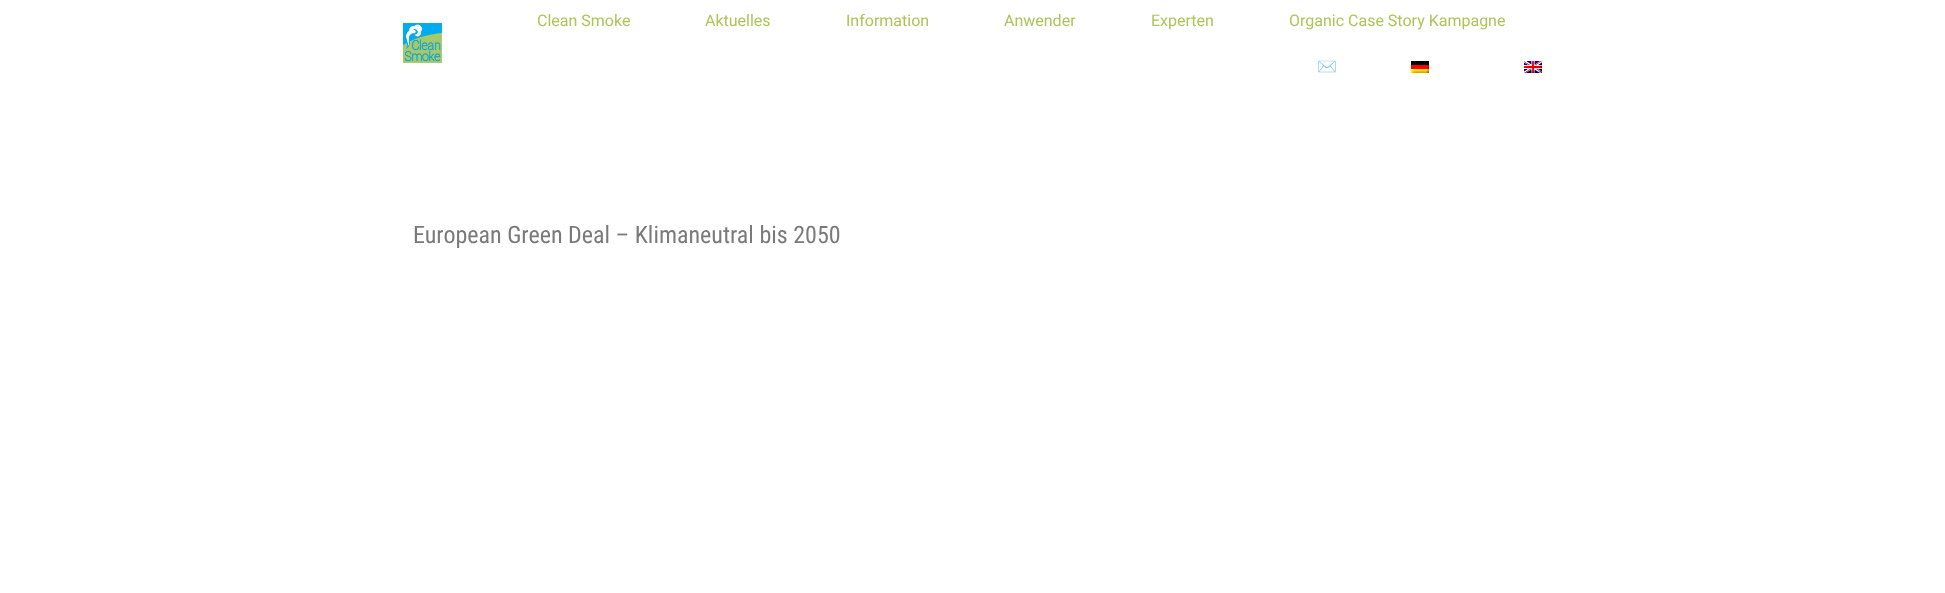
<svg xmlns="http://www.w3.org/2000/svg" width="1945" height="593">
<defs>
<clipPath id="clip1"><rect x="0" y="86" width="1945" height="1"/></clipPath>
</defs>
<rect width="100%" height="100%" fill="#fff"/>
<g clip-path="url(#clip1)">
<rect width="1945" height="86" fill="#00000066" filter="blur(0.5px)"/>
</g>
<image x="402" y="23" width="40" height="40" href="media/1.png"/>
<text x="537" y="26" style="font-family:Roboto;font-size:16px;fill:#abc557">Clean Smoke</text>
<text x="705" y="26" style="font-family:Roboto;font-size:16px;fill:#abc557">Aktuelles</text>
<text x="846" y="26" style="font-family:Roboto;font-size:16px;fill:#abc557">Information</text>
<text x="1004" y="26" style="font-family:Roboto;font-size:16px;fill:#abc557">Anwender</text>
<text x="1151" y="26" style="font-family:Roboto;font-size:16px;fill:#abc557">Experten</text>
<text x="1289" y="26" style="font-family:Roboto;font-size:16px;fill:#abc557">Organic Case Story Kampagne</text>
<text x="1317" y="72" style="font-family:Noto Color Emoji;font-size:16px;fill:#abc557">✉️</text>
<image x="1411" y="61" width="18" height="12" href="media/2.png"/>
<image x="1524" y="61" width="18" height="12" href="media/3.png"/>
<text x="413" y="243" style="font-family:Roboto Condensed;font-size:24px;fill:#7a7a7a">European Green Deal – Klimaneutral bis 2050</text>
</svg>
